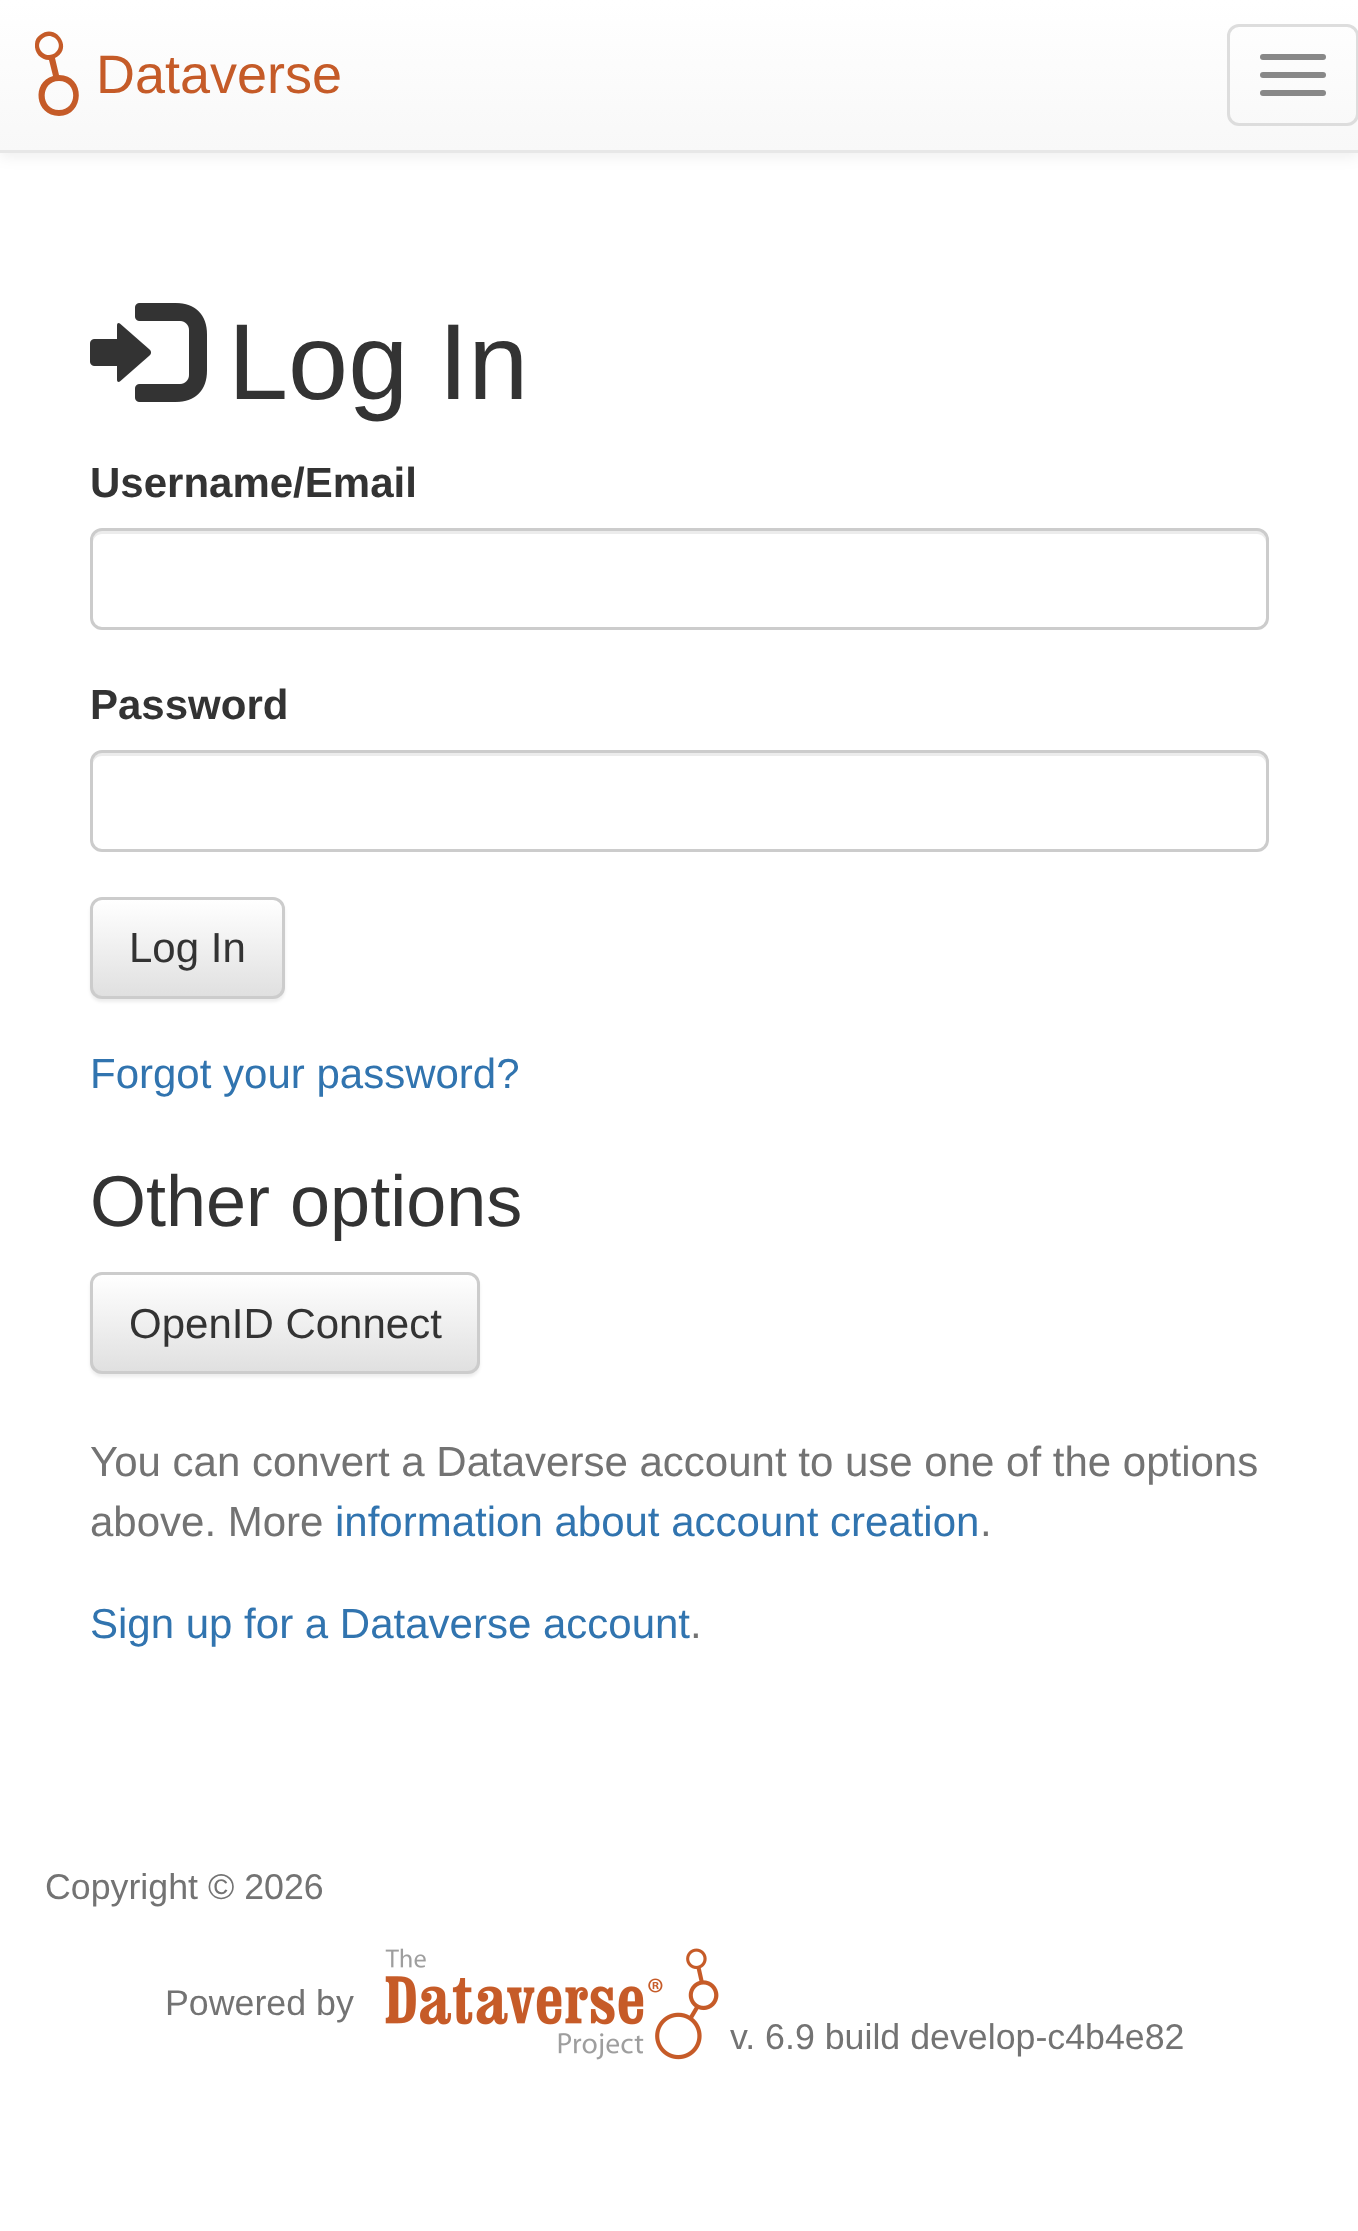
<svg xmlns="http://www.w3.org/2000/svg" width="1358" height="2231">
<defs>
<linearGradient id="g1" gradientUnits="userSpaceOnUse" x1="680" y1="0" x2="680" y2="150"><stop offset="0" stop-color="#fff"/><stop offset="1" stop-color="#f8f8f8"/></linearGradient>
<clipPath id="clip1"><rect x="90" y="897" width="195" height="102" rx="12"/></clipPath>
<linearGradient id="g2" gradientUnits="userSpaceOnUse" x1="188" y1="900" x2="188" y2="996"><stop offset="0" stop-color="#fff"/><stop offset="1" stop-color="#e0e0e0"/></linearGradient>
<clipPath id="clip2"><rect x="90" y="1272" width="390" height="102" rx="12"/></clipPath>
<linearGradient id="g3" gradientUnits="userSpaceOnUse" x1="285" y1="1275" x2="285" y2="1371"><stop offset="0" stop-color="#fff"/><stop offset="1" stop-color="#e0e0e0"/></linearGradient>
</defs>
<rect width="100%" height="100%" fill="#fff"/>
<rect y="3" width="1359" height="153" fill="#00000012" filter="blur(7.5px)"/>
<rect width="1358" height="150" fill="url(#g1)"/>
<rect y="150" width="1358" height="3" fill="#e7e7e7"/>
<path d="M59 116c-24 0-28-34-6-40l-4-16c-8 0-15-7-14-16c0-4 2-7 5-9c16-13 34 14 15 23l4 17c27 0 26 41 0 41zm-17-77c-9 9 5 22 14 13c9-9-5-22-14-13zm17 71c19 0 19-29 0-29c-19 0-19 29 0 29z" fill="#c55b28"/>
<text x="96" y="93" style="font-family:Liberation Sans;font-size:54px;fill:#c55b28">Dataverse</text>
<rect x="1228.5" y="25.5" width="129" height="99" rx="10.5" fill="none" stroke="#ddd" stroke-width="3"/>
<rect x="1260" y="54" width="66" height="6" rx="3" fill="#888"/>
<rect x="1260" y="72" width="66" height="6" rx="3" fill="#888"/>
<rect x="1260" y="90" width="66" height="6" rx="3" fill="#888"/>
<image x="90" y="303" width="117" height="99" href="media/1.png"/>
<text x="228" y="399" style="font-family:Liberation Sans;font-size:108px;fill:#333">Log In</text>
<text x="90" y="497" style="font-family:Liberation Sans;font-size:42px;font-weight:bold;fill:#333">Username/Email</text>
<path d="M102 534h1155c5 0 9 4 9 9v-3c0-5-4-9-9-9h-1155c-5 0-9 4-9 9v3c0-5 4-9 9-9z" fill="#ececec"/>
<rect x="91.5" y="529.5" width="1176" height="99" rx="10.5" fill="none" stroke="#ccc" stroke-width="3"/>
<text x="90" y="719" style="font-family:Liberation Sans;font-size:42px;font-weight:bold;fill:#333">Password</text>
<path d="M102 756h1155c5 0 9 4 9 9v-3c0-5-4-9-9-9h-1155c-5 0-9 4-9 9v3c0-5 4-9 9-9z" fill="#ececec"/>
<rect x="91.5" y="751.5" width="1176" height="99" rx="10.5" fill="none" stroke="#ccc" stroke-width="3"/>
<rect x="90" y="900" width="195" height="102" rx="12" fill="#00000012" filter="blur(1.5px)"/>
<g clip-path="url(#clip1)">
<rect x="90" y="900" width="195" height="96" fill="url(#g2)"/>
</g>
<rect x="91.5" y="898.5" width="192" height="99" rx="10.5" fill="none" stroke="#ccc" stroke-width="3"/>
<text x="129" y="962" style="font-family:Liberation Sans;font-size:42px;fill:#333">Log In</text>
<text x="90" y="1088" style="font-family:Liberation Sans;font-size:42px;fill:#3174af">Forgot your password?</text>
<text x="90" y="1226" style="font-family:Liberation Sans;font-size:72px;fill:#333">Other options</text>
<rect x="90" y="1275" width="390" height="102" rx="12" fill="#00000012" filter="blur(1.5px)"/>
<g clip-path="url(#clip2)">
<rect x="90" y="1275" width="390" height="96" fill="url(#g3)"/>
</g>
<rect x="91.5" y="1273.5" width="387" height="99" rx="10.5" fill="none" stroke="#ccc" stroke-width="3"/>
<text x="129" y="1338" style="font-family:Liberation Sans;font-size:42px;fill:#333">OpenID Connect</text>
<text x="90" y="1476" style="font-family:Liberation Sans;font-size:42px;fill:#737373">You can convert a Dataverse account to use one of the options</text>
<text x="90" y="1536" style="font-family:Liberation Sans;font-size:42px;fill:#737373">above. More</text>
<text x="335" y="1536" style="font-family:Liberation Sans;font-size:42px;fill:#3174af">information about account creation</text>
<text x="980" y="1536" style="font-family:Liberation Sans;font-size:42px;fill:#737373">.</text>
<text x="90" y="1638" style="font-family:Liberation Sans;font-size:42px;fill:#3174af">Sign up for a Dataverse account</text>
<text x="690" y="1638" style="font-family:Liberation Sans;font-size:42px;fill:#737373">.</text>
<text x="45" y="1899" style="font-family:Liberation Sans;font-size:35.75px;fill:#737373">Copyright © 2026</text>
<text x="165" y="2015" style="font-family:Liberation Sans;font-size:35.75px;fill:#737373">Powered by</text>
<image x="385" y="1948" width="334" height="112" href="media/2.png"/>
<text x="730" y="2049" style="font-family:Liberation Sans;font-size:35.75px;fill:#737373">v. 6.9 build develop-c4b4e82</text>
</svg>
